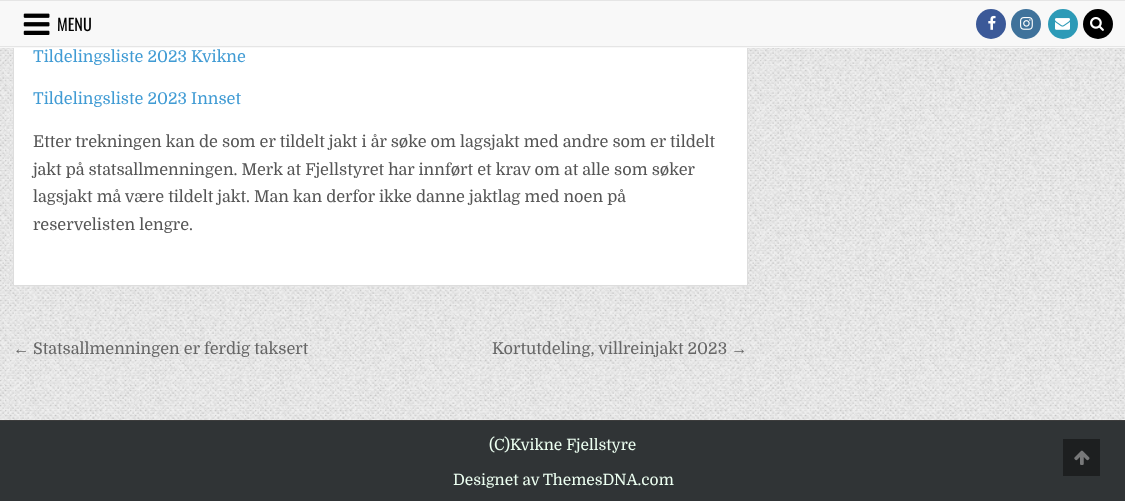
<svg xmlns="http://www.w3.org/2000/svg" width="1125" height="501">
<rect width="100%" height="100%" fill="#fff"/>
<image x="0" y="48" width="1125" height="372" href="media/1.png"/>
<rect x="14" y="48" width="733" height="237" fill="#fff"/>
<rect x="13.5" y="-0.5" width="734" height="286" fill="none" stroke="#ddd"/>
<rect y="1" width="1125" height="47" fill="#f8f8f8"/>
<rect width="1125" height="1" fill="#e5e5e5"/>
<rect y="46" width="1125" height="1" fill="#e5e5e5"/>
<image x="23" y="13" width="27" height="22" href="media/2.png"/>
<text x="57" y="31" style="font-family:Oswald;font-size:16.25px;fill:#000">MENU</text>
<circle cx="991" cy="24" r="15" fill="#3b5998"/>
<image x="988" y="15" width="8" height="15" href="media/3.png"/>
<circle cx="1026" cy="24" r="15" fill="#3f729b"/>
<image x="1020" y="17" width="13" height="13" href="media/4.png"/>
<circle cx="1063" cy="24" r="15" fill="#2c9ab7"/>
<image x="1055" y="18" width="15" height="12" href="media/5.png"/>
<circle cx="1098" cy="24" r="15" fill="#000"/>
<image x="1090" y="17" width="14" height="14" href="media/6.png"/>
<text x="33" y="62" style="font-family:Domine;font-size:16.25px;fill:#409bd4">Tildelingsliste 2023 Kvikne</text>
<text x="33" y="104" style="font-family:Domine;font-size:16.25px;fill:#409bd4">Tildelingsliste 2023 Innset</text>
<text x="33" y="147" style="font-family:Domine;font-size:16.25px;fill:#555">Etter trekningen kan de som er tildelt jakt i år søke om lagsjakt med andre som er tildelt</text>
<text x="33" y="175" style="font-family:Domine;font-size:16.25px;fill:#555">jakt på statsallmenningen. Merk at Fjellstyret har innført et krav om at alle som søker</text>
<text x="33" y="202" style="font-family:Domine;font-size:16.25px;fill:#555">lagsjakt må være tildelt jakt. Man kan derfor ikke danne jaktlag med noen på</text>
<text x="33" y="230" style="font-family:Domine;font-size:16.25px;fill:#555">reservelisten lengre.</text>
<text x="13" y="354" style="font-family:Liberation Sans;font-size:16.25px;fill:#666">←</text>
<text x="33" y="354" style="font-family:Domine;font-size:16.25px;fill:#666">Statsallmenningen er ferdig taksert</text>
<text x="492" y="354" style="font-family:Domine;font-size:16.25px;fill:#666">Kortutdeling, villreinjakt 2023</text>
<text x="731" y="354" style="font-family:Liberation Sans;font-size:16.25px;fill:#666">→</text>
<rect y="421" width="1125" height="80" fill="#303436"/>
<rect y="420" width="1125" height="1" fill="#3d3d3d"/>
<text x="489" y="450" style="font-family:Domine;font-size:15.5px;fill:#ecfff1">(C)Kvikne Fjellstyre</text>
<text x="453" y="485" style="font-family:Domine;font-size:15.5px;fill:#ecfff1">Designet av ThemesDNA.com</text>
<rect x="1063" y="439" width="37" height="37" fill="#1d1f20"/>
<image x="1074" y="450" width="16" height="15" href="media/7.png"/>
</svg>
